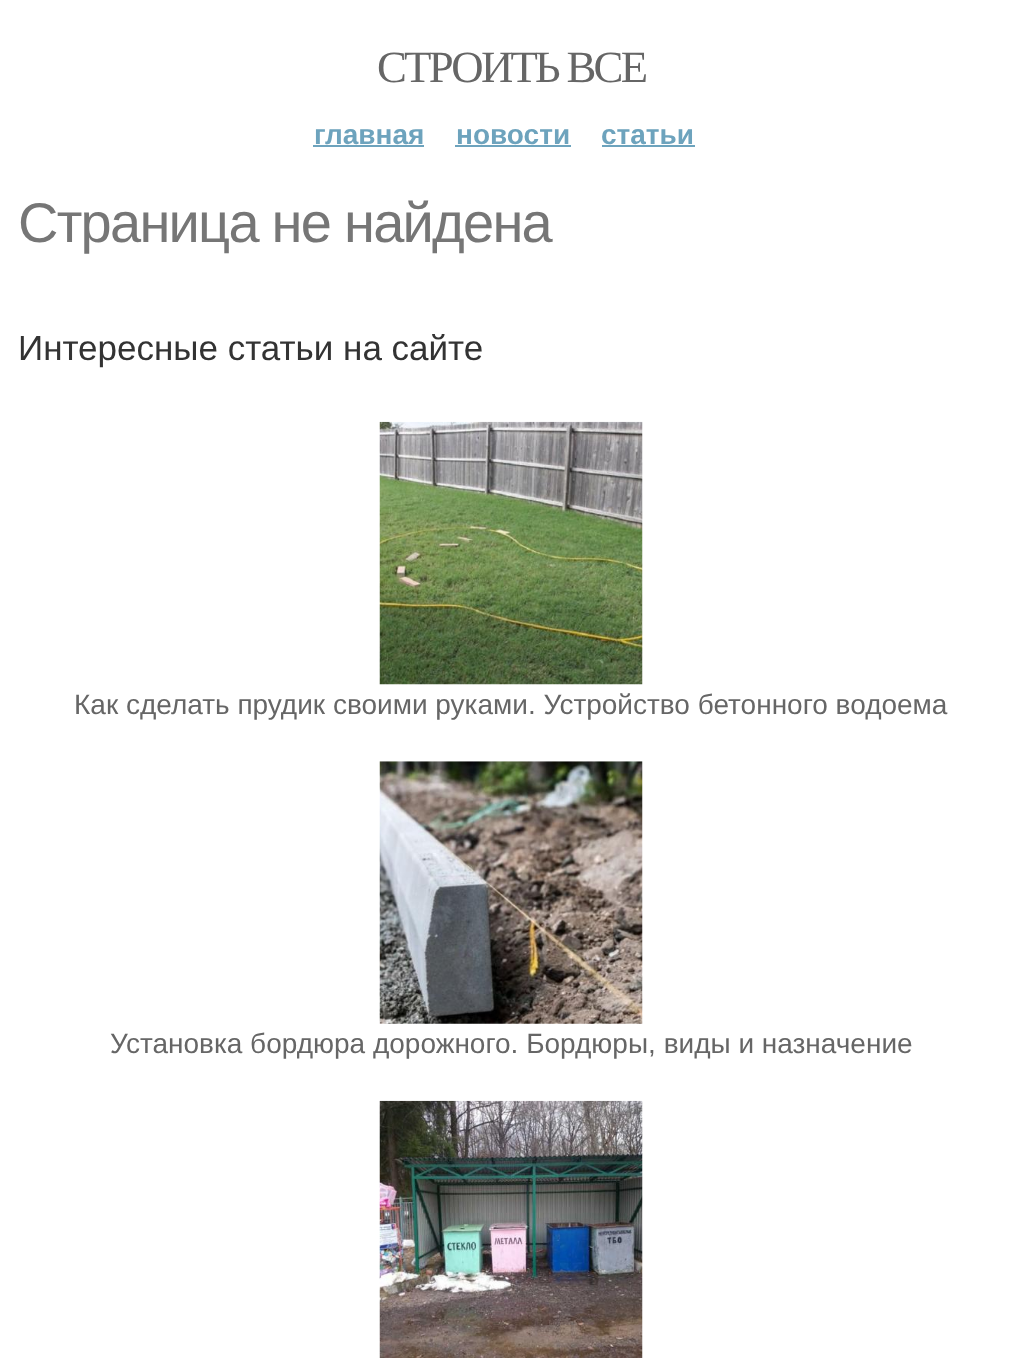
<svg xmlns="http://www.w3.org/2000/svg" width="1021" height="1358">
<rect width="100%" height="100%" fill="#fff"/>
<text x="377" y="82" style="font-family:Liberation Serif;font-size:44.75px;letter-spacing:-2.75px;fill:#666">СТРОИТЬ ВСЕ</text>
<text x="314" y="144" style="font-family:Liberation Sans;font-size:28px;font-weight:bold;fill:#6da3bd">главная</text>
<rect x="313" y="145" width="111" height="2" fill="#6da3bd"/>
<text x="456" y="144" style="font-family:Liberation Sans;font-size:28px;font-weight:bold;fill:#6da3bd">новости</text>
<rect x="455" y="145" width="116" height="2" fill="#6da3bd"/>
<text x="601" y="144" style="font-family:Liberation Sans;font-size:28px;font-weight:bold;fill:#6da3bd">статьи</text>
<rect x="602" y="145" width="93" height="2" fill="#6da3bd"/>
<text x="18" y="242" style="font-family:Liberation Sans;font-size:56px;letter-spacing:-1.75px;fill:#767676">Страница не найдена</text>
<text x="18" y="360" style="font-family:Liberation Sans;font-size:35px;fill:#333">Интересные статьи на сайте</text>
<image x="379" y="421" width="264" height="264" href="media/1.png"/>
<text x="74" y="714" style="font-family:Liberation Sans;font-size:28px;fill:#666">Как сделать прудик своими руками. Устройство бетонного водоема</text>
<image x="379" y="761" width="264" height="263" href="media/2.png"/>
<text x="110" y="1053" style="font-family:Liberation Sans;font-size:28px;fill:#666">Установка бордюра дорожного. Бордюры, виды и назначение</text>
<image x="379" y="1100" width="264" height="258" href="media/3.png"/>
</svg>
